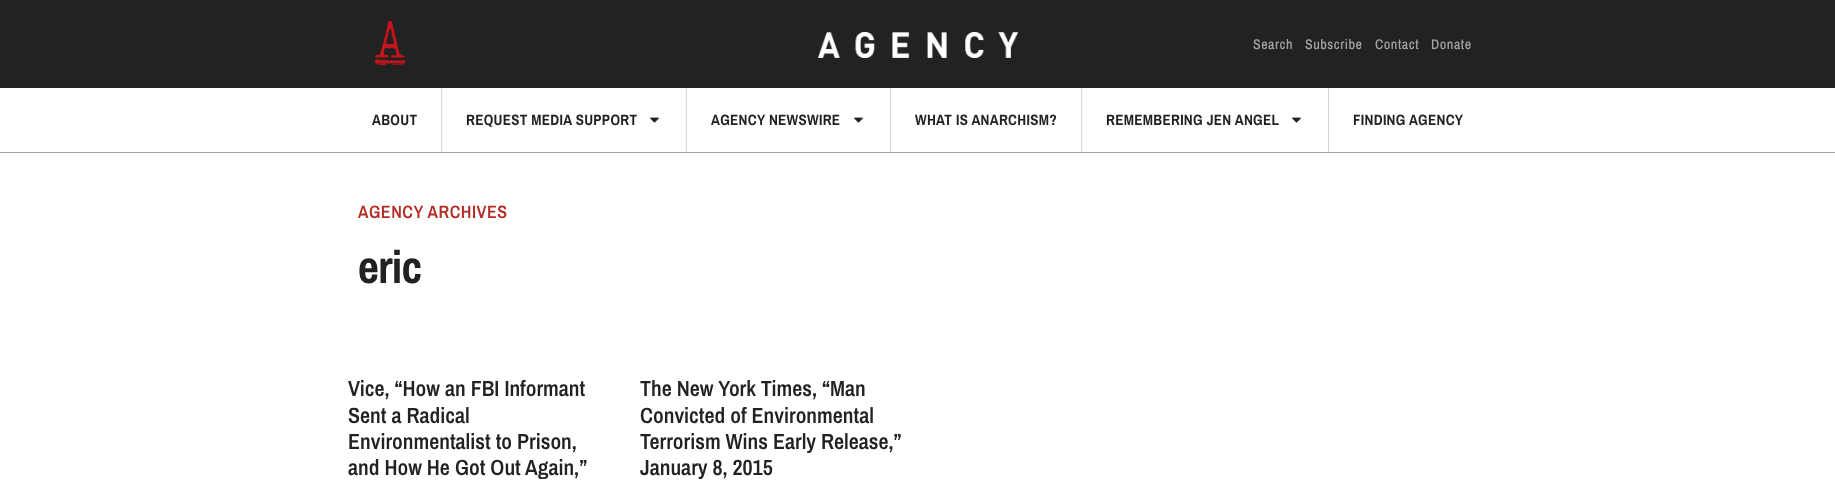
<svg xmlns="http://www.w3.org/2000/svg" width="1835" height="497">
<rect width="100%" height="100%" fill="#fff"/>
<rect width="1835" height="88" fill="#222"/>
<image x="375" y="20" width="31" height="46" href="media/1.png"/>
<image x="818" y="32" width="200" height="26" href="media/2.png"/>
<text x="1253" y="49" style="font-family:Archivo Narrow;font-size:14px;font-weight:500;letter-spacing:0.5px;fill:#a5a5a5">Search</text>
<text x="1305" y="49" style="font-family:Archivo Narrow;font-size:14px;font-weight:500;letter-spacing:0.5px;fill:#a5a5a5">Subscribe</text>
<text x="1375" y="49" style="font-family:Archivo Narrow;font-size:14px;font-weight:500;letter-spacing:0.5px;fill:#a5a5a5">Contact</text>
<text x="1431" y="49" style="font-family:Archivo Narrow;font-size:14px;font-weight:500;letter-spacing:0.5px;fill:#a5a5a5">Donate</text>
<rect y="152" width="1835" height="1" fill="#a5a5a5"/>
<text x="372" y="125" style="font-family:Archivo Narrow;font-size:15px;font-weight:bold;letter-spacing:0.3px;fill:#222">ABOUT</text>
<rect x="441" y="88" width="1" height="64" fill="#d6d6d6"/>
<text x="466" y="125" style="font-family:Archivo Narrow;font-size:15px;font-weight:bold;letter-spacing:0.3px;fill:#222">REQUEST MEDIA SUPPORT</text>
<image x="650" y="117" width="9" height="6" href="media/3.png"/>
<rect x="686" y="88" width="1" height="64" fill="#d6d6d6"/>
<text x="711" y="125" style="font-family:Archivo Narrow;font-size:15px;font-weight:bold;letter-spacing:0.3px;fill:#222">AGENCY NEWSWIRE</text>
<image x="854" y="117" width="9" height="6" href="media/3.png"/>
<rect x="890" y="88" width="1" height="64" fill="#d6d6d6"/>
<text x="915" y="125" style="font-family:Archivo Narrow;font-size:15px;font-weight:bold;letter-spacing:0.3px;fill:#222">WHAT IS ANARCHISM?</text>
<rect x="1081" y="88" width="1" height="64" fill="#d6d6d6"/>
<text x="1106" y="125" style="font-family:Archivo Narrow;font-size:15px;font-weight:bold;letter-spacing:0.3px;fill:#222">REMEMBERING JEN ANGEL</text>
<image x="1292" y="117" width="9" height="6" href="media/3.png"/>
<rect x="1328" y="88" width="1" height="64" fill="#d6d6d6"/>
<text x="1353" y="125" style="font-family:Archivo Narrow;font-size:15px;font-weight:bold;letter-spacing:0.3px;fill:#222">FINDING AGENCY</text>
<text x="358" y="218" style="font-family:Archivo Narrow;font-size:18px;font-weight:600;letter-spacing:0.5px;fill:#b42d27">AGENCY ARCHIVES</text>
<text x="358" y="283" style="font-family:Archivo Narrow;font-size:46px;font-weight:bold;letter-spacing:-1px;fill:#222">eric</text>
<text x="348" y="396" style="font-family:Archivo Narrow;font-size:22px;font-weight:600;fill:#222">Vice, “How an FBI Informant</text>
<text x="348" y="423" style="font-family:Archivo Narrow;font-size:22px;font-weight:600;fill:#222">Sent a Radical</text>
<text x="348" y="449" style="font-family:Archivo Narrow;font-size:22px;font-weight:600;fill:#222">Environmentalist to Prison,</text>
<text x="348" y="475" style="font-family:Archivo Narrow;font-size:22px;font-weight:600;fill:#222">and How He Got Out Again,”</text>
<text x="640" y="396" style="font-family:Archivo Narrow;font-size:22px;font-weight:600;fill:#222">The New York Times, “Man</text>
<text x="640" y="423" style="font-family:Archivo Narrow;font-size:22px;font-weight:600;fill:#222">Convicted of Environmental</text>
<text x="640" y="449" style="font-family:Archivo Narrow;font-size:22px;font-weight:600;fill:#222">Terrorism Wins Early Release,”</text>
<text x="640" y="475" style="font-family:Archivo Narrow;font-size:22px;font-weight:600;fill:#222">January 8, 2015</text>
</svg>
